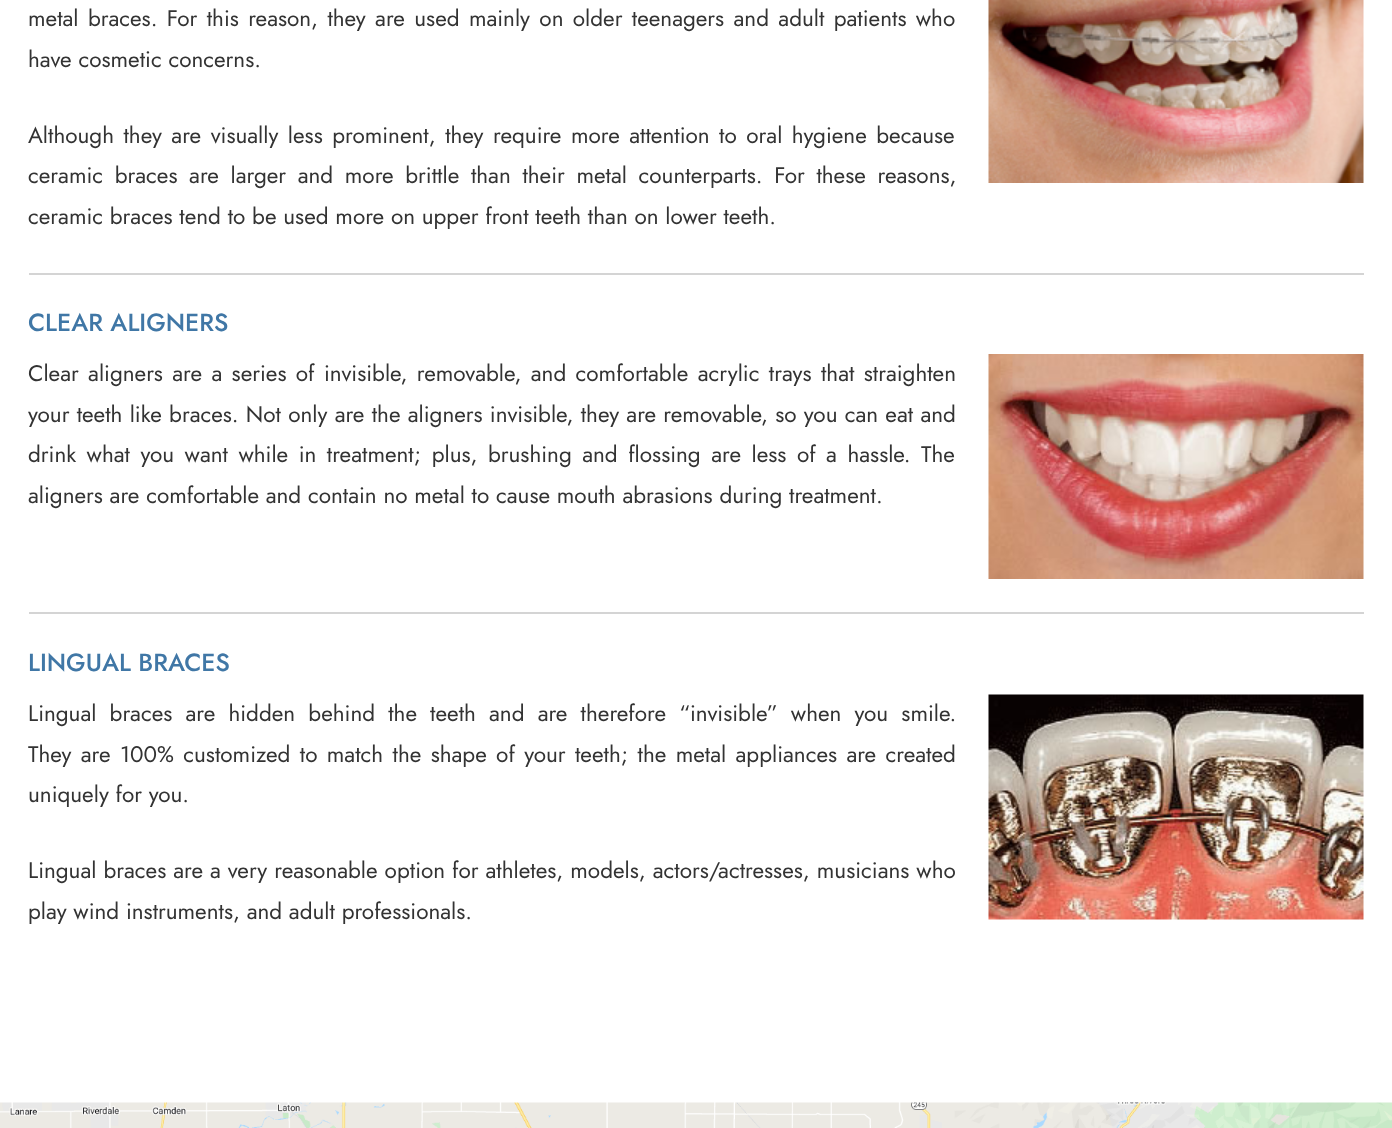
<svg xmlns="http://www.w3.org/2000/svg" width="1392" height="1128">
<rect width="100%" height="100%" fill="#fff"/>
<text x="28" y="26" word-spacing="2.6" style="font-family:Jost;font-size:22.5px;fill:#333">metal braces. For this reason, they are used mainly on older teenagers and adult patients who</text>
<text x="28" y="67" style="font-family:Jost;font-size:22.5px;fill:#333">have cosmetic concerns.</text>
<image x="988" y="0" width="376" height="183" href="media/1.png"/>
<text x="28" y="143" word-spacing="2.75" style="font-family:Jost;font-size:22.5px;fill:#333">Although they are visually less prominent, they require more attention to oral hygiene because</text>
<text x="28" y="183" word-spacing="4.9" style="font-family:Jost;font-size:22.5px;fill:#333">ceramic braces are larger and more brittle than their metal counterparts. For these reasons,</text>
<text x="28" y="224" style="font-family:Jost;font-size:22.5px;fill:#333">ceramic braces tend to be used more on upper front teeth than on lower teeth.</text>
<rect x="29" y="273" width="1335" height="2" fill="#d4d4d4"/>
<text x="28" y="331" style="font-family:Jost;font-size:24.75px;font-weight:500;fill:#4077a6">CLEAR ALIGNERS</text>
<text x="28" y="381" word-spacing="2.6" style="font-family:Jost;font-size:22.5px;fill:#333">Clear aligners are a series of invisible, removable, and comfortable acrylic trays that straighten</text>
<text x="28" y="422" word-spacing="0.5" style="font-family:Jost;font-size:22.5px;fill:#333">your teeth like braces. Not only are the aligners invisible, they are removable, so you can eat and</text>
<text x="28" y="462" word-spacing="3.75" style="font-family:Jost;font-size:22.5px;fill:#333">drink what you want while in treatment; plus, brushing and flossing are less of a hassle. The</text>
<text x="28" y="503" style="font-family:Jost;font-size:22.5px;fill:#333">aligners are comfortable and contain no metal to cause mouth abrasions during treatment.</text>
<image x="988" y="354" width="376" height="225" href="media/2.png"/>
<rect x="29" y="612" width="1335" height="2" fill="#d4d4d4"/>
<text x="28" y="671" style="font-family:Jost;font-size:24.75px;font-weight:500;fill:#4077a6">LINGUAL BRACES</text>
<text x="28" y="721" word-spacing="6.4" style="font-family:Jost;font-size:22.5px;fill:#333">Lingual braces are hidden behind the teeth and are therefore “invisible” when you smile.</text>
<text x="28" y="762" word-spacing="2.6" style="font-family:Jost;font-size:22.5px;fill:#333">They are 100% customized to match the shape of your teeth; the metal appliances are created</text>
<text x="28" y="802" style="font-family:Jost;font-size:22.5px;fill:#333">uniquely for you.</text>
<image x="988" y="694" width="376" height="226" href="media/3.png"/>
<text x="28" y="878" word-spacing="0.25" style="font-family:Jost;font-size:22.5px;fill:#333">Lingual braces are a very reasonable option for athletes, models, actors/actresses, musicians who</text>
<text x="28" y="919" style="font-family:Jost;font-size:22.5px;fill:#333">play wind instruments, and adult professionals.</text>
<image x="0" y="1102" width="1392" height="26" href="media/4.png"/>
</svg>
